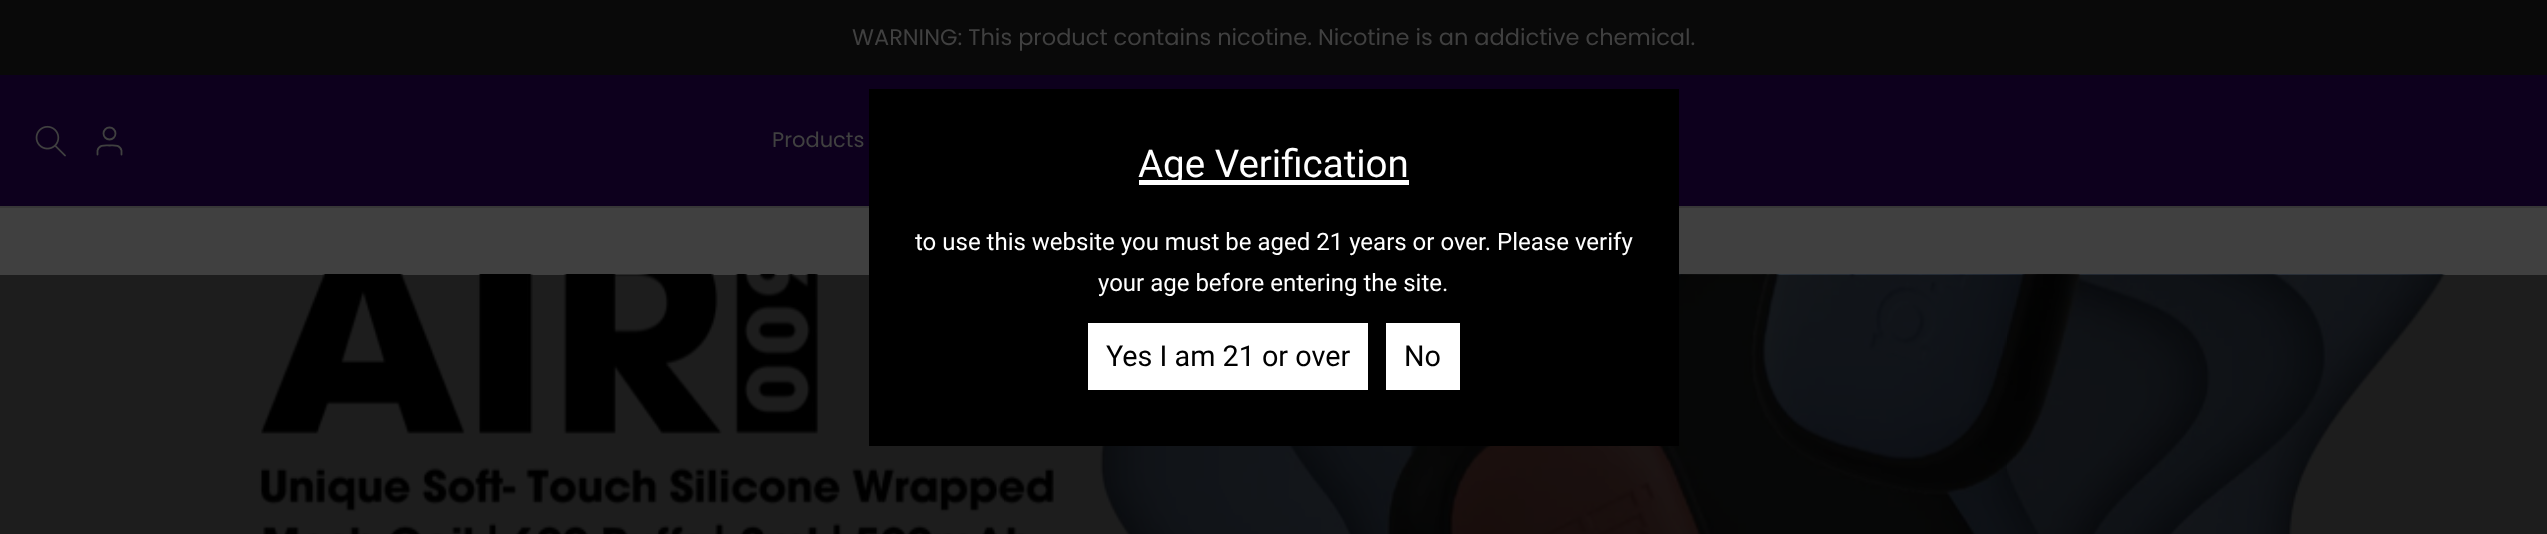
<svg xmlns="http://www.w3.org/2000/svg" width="2547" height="534">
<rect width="100%" height="100%" fill="#404040"/>
<rect y="275" width="2547" height="259" fill="#1d1d1d"/>
<rect width="2547" height="75" fill="#090909"/>
<text x="852" y="45" style="font-family:Poppins;font-size:22.5px;fill:#404040">WARNING: This product contains nicotine. Nicotine is an addictive chemical.</text>
<rect y="75" width="2547" height="131" fill="#0d001d"/>
<image x="35" y="125" width="31" height="32" href="media/1.png"/>
<circle cx="109.5" cy="133.5" r="6" fill="none" stroke="#404040" stroke-width="1.8"/>
<path d="M121.5 154.5v-4c-1.5-6-7.5-5-12-5c-4.5 0-10.5-1-12 5v4" fill="none" stroke="#404040" stroke-width="1.8" stroke-linecap="round" stroke-linejoin="round"/>
<text x="772" y="147" style="font-family:Poppins;font-size:21px;fill:#404040">Products</text>
<rect y="206" width="2547" height="2" fill="#373737"/>
<image x="259" y="274" width="2189" height="260" href="media/2.png"/>
<rect x="869" y="89" width="810" height="357" fill="#000"/>
<rect x="1139" y="180" width="270" height="5" fill="#fff"/>
<text x="1138" y="177" style="font-family:Roboto;font-size:38.5px;fill:#fff">Age Verification</text>
<text x="915" y="250" style="font-family:Roboto;font-size:24px;fill:#fff">to use this website you must be aged 21 years or over. Please verify</text>
<text x="1098" y="291" style="font-family:Roboto;font-size:24px;fill:#fff">your age before entering the site.</text>
<rect x="1088" y="323" width="280" height="67" fill="#fff"/>
<text x="1106" y="366" style="font-family:Roboto;font-size:28.75px;fill:#000">Yes I am 21 or over</text>
<rect x="1386" y="323" width="74" height="67" fill="#fff"/>
<text x="1404" y="366" style="font-family:Roboto;font-size:28.75px;fill:#000">No</text>
</svg>
